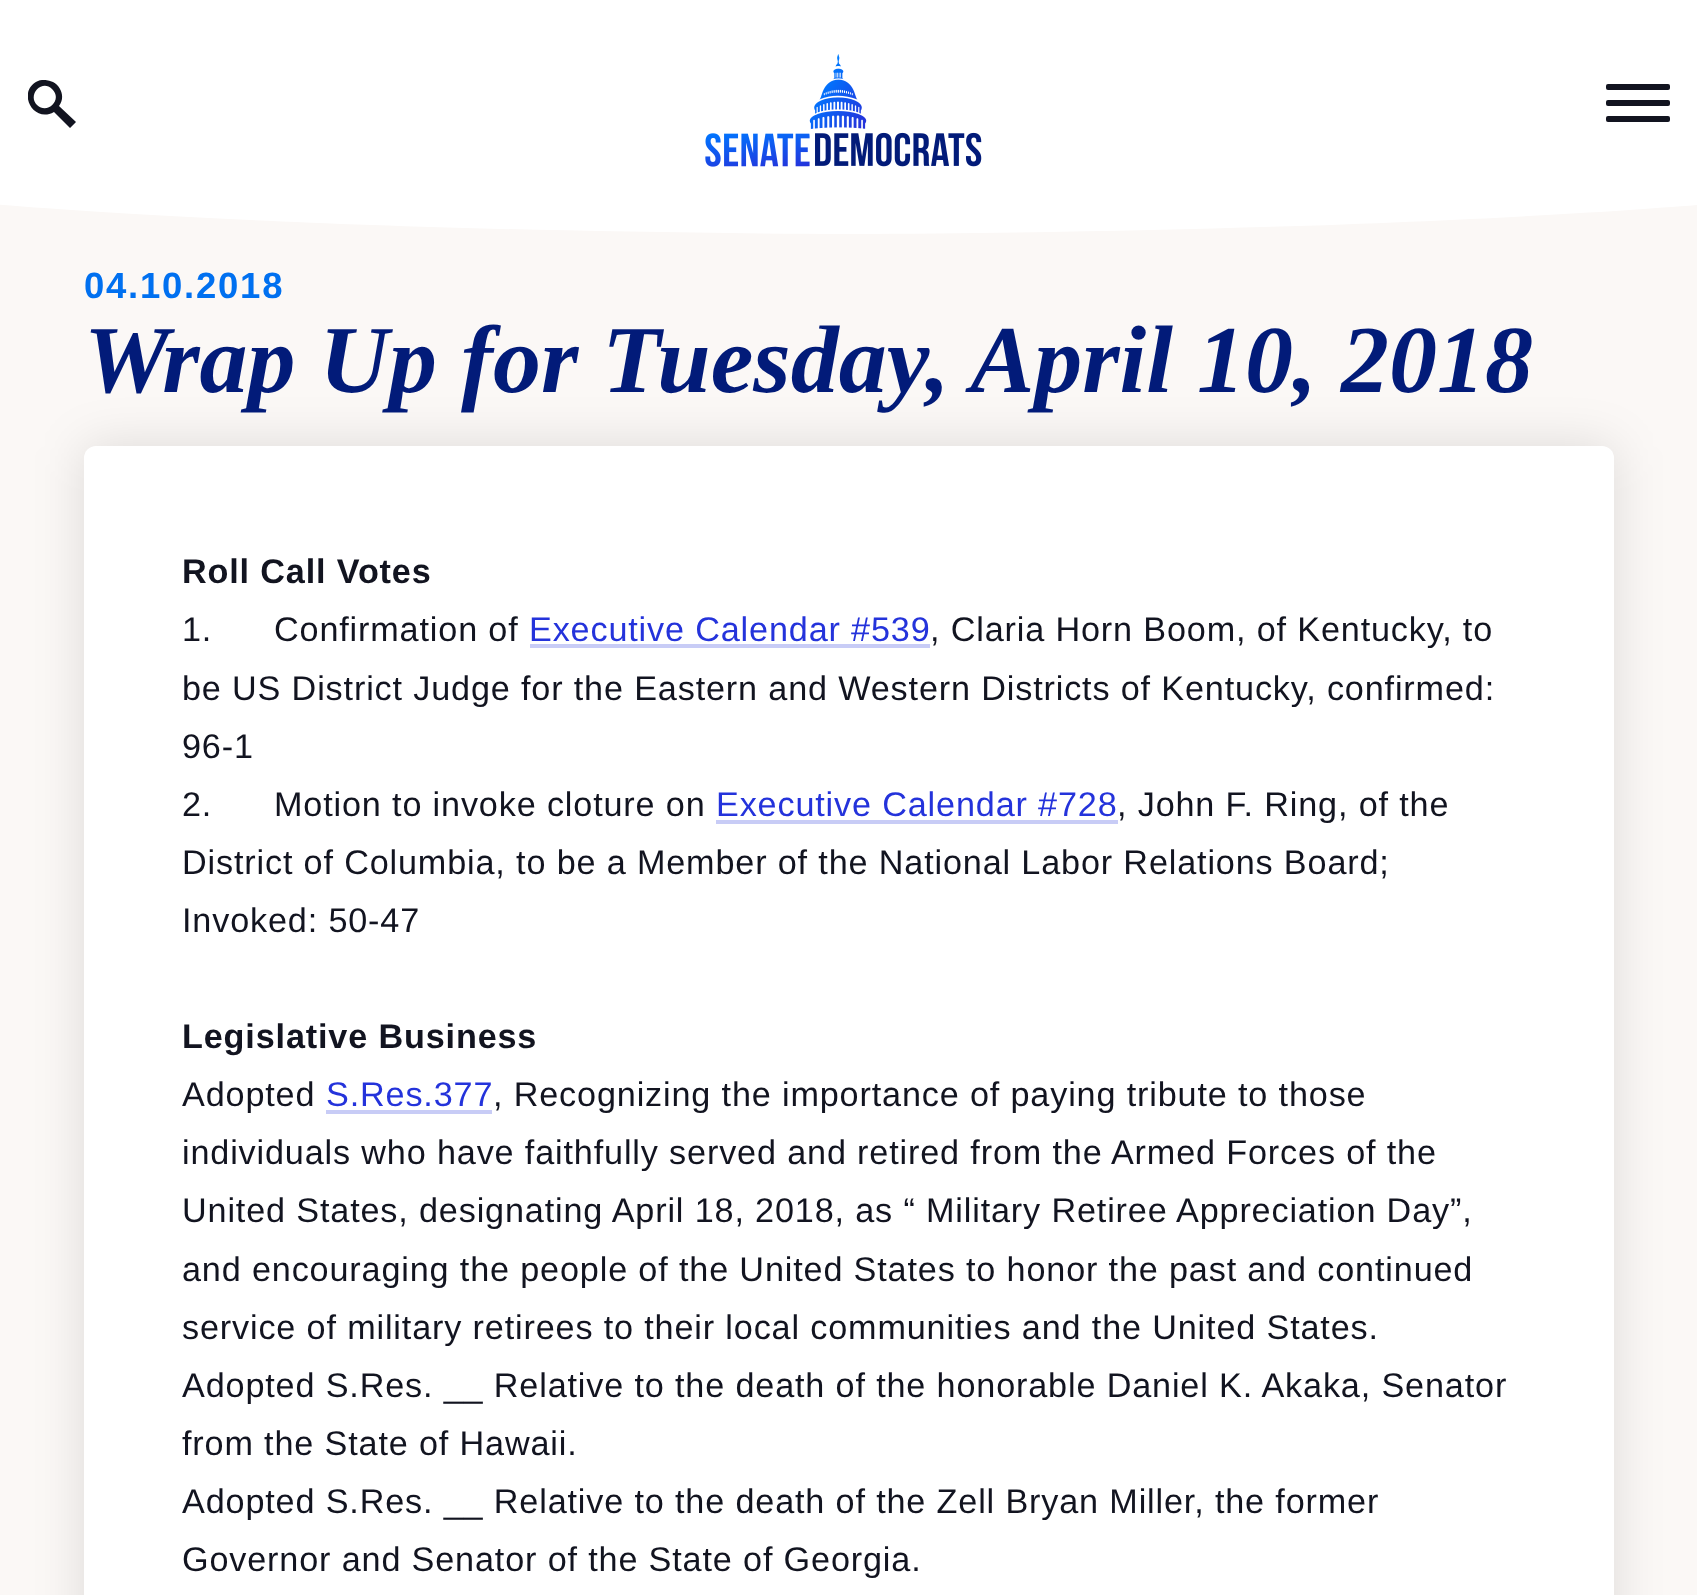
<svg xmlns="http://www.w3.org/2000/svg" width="1697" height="1595">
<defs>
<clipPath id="clip1"><rect x="28" y="80" width="48" height="48"/></clipPath>
</defs>
<rect width="100%" height="100%" fill="#fbf8f6"/>
<rect width="1697" height="197" fill="#fff"/>
<g clip-path="url(#clip1)">
<path d="M76 122l-17-16c6-8 3-19-6-24c-5-2-10-3-15-1c-22 10-5 43 16 31l16 16zm-39-17c-10-10 5-26 15-16c11 10-4 26-15 16z" fill="#121420"/>
</g>
<image x="705" y="54" width="277" height="113" href="media/1.png"/>
<rect x="1606" y="84" width="64" height="6" rx="2" fill="#121420"/>
<rect x="1606" y="100" width="64" height="6" rx="2" fill="#121420"/>
<rect x="1606" y="116" width="64" height="6" rx="2" fill="#121420"/>
<path d="M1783 197c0 0-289 34-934 37c-645-3-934-37-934-37" fill="#fff"/>
<text x="84" y="298" style="font-family:Arimo;font-size:36.5px;font-weight:bold;letter-spacing:1.75px;fill:#0070f0">04.10.2018</text>
<rect x="84" y="446" width="1530" height="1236" rx="12" fill="#0000001f" filter="blur(25px)"/>
<text x="84" y="392" style="font-family:Tinos;font-size:96px;font-weight:bold;font-style:italic;fill:#021b79">Wrap Up for Tuesday, April 10, 2018</text>
<rect x="84" y="446" width="1530" height="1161" rx="12" fill="#fff"/>
<text x="182" y="583" style="font-family:Arimo;font-size:34.2px;font-weight:bold;letter-spacing:0.85px;fill:#121420">Roll Call Votes</text>
<text x="182" y="641" style="font-family:Arimo;font-size:34.2px;letter-spacing:0.85px;fill:#121420">1.</text>
<text x="274" y="641" style="font-family:Arimo;font-size:34.2px;letter-spacing:0.85px;fill:#121420">Confirmation of</text>
<text x="529" y="641" style="font-family:Arimo;font-size:34.2px;letter-spacing:0.85px;fill:#2433db">Executive Calendar #539</text>
<text x="930" y="641" style="font-family:Arimo;font-size:34.2px;letter-spacing:0.85px;fill:#121420">, Claria Horn Boom, of Kentucky, to</text>
<rect x="530" y="644" width="400" height="4" fill="#c8ccf6"/>
<text x="182" y="700" style="font-family:Arimo;font-size:34.2px;letter-spacing:0.85px;fill:#121420">be US District Judge for the Eastern and Western Districts of Kentucky, confirmed:</text>
<text x="182" y="758" style="font-family:Arimo;font-size:34.2px;letter-spacing:0.85px;fill:#121420">96-1</text>
<text x="182" y="816" style="font-family:Arimo;font-size:34.2px;letter-spacing:0.85px;fill:#121420">2.</text>
<text x="274" y="816" style="font-family:Arimo;font-size:34.2px;letter-spacing:0.85px;fill:#121420">Motion to invoke cloture on</text>
<text x="716" y="816" style="font-family:Arimo;font-size:34.2px;letter-spacing:0.85px;fill:#2433db">Executive Calendar #728</text>
<text x="1117" y="816" style="font-family:Arimo;font-size:34.2px;letter-spacing:0.85px;fill:#121420">, John F. Ring, of the</text>
<rect x="716" y="820" width="402" height="4" fill="#c8ccf6"/>
<text x="182" y="874" style="font-family:Arimo;font-size:34.2px;letter-spacing:0.85px;fill:#121420">District of Columbia, to be a Member of the National Labor Relations Board;</text>
<text x="182" y="932" style="font-family:Arimo;font-size:34.2px;letter-spacing:0.85px;fill:#121420">Invoked: 50-47</text>
<text x="182" y="1048" style="font-family:Arimo;font-size:34.2px;font-weight:bold;letter-spacing:0.85px;fill:#121420">Legislative Business</text>
<text x="182" y="1106" style="font-family:Arimo;font-size:34.2px;letter-spacing:0.85px;fill:#121420">Adopted</text>
<text x="326" y="1106" style="font-family:Arimo;font-size:34.2px;letter-spacing:0.85px;fill:#2433db">S.Res.377</text>
<text x="493" y="1106" style="font-family:Arimo;font-size:34.2px;letter-spacing:0.85px;fill:#121420">, Recognizing the importance of paying tribute to those</text>
<rect x="326" y="1110" width="166" height="4" fill="#c8ccf6"/>
<text x="182" y="1164" style="font-family:Arimo;font-size:34.2px;letter-spacing:0.85px;fill:#121420">individuals who have faithfully served and retired from the Armed Forces of the</text>
<text x="182" y="1222" style="font-family:Arimo;font-size:34.2px;letter-spacing:0.85px;fill:#121420">United States, designating April 18, 2018, as “ Military Retiree Appreciation Day”,</text>
<text x="182" y="1281" style="font-family:Arimo;font-size:34.2px;letter-spacing:0.85px;fill:#121420">and encouraging the people of the United States to honor the past and continued</text>
<text x="182" y="1339" style="font-family:Arimo;font-size:34.2px;letter-spacing:0.85px;fill:#121420">service of military retirees to their local communities and the United States.</text>
<text x="182" y="1397" style="font-family:Arimo;font-size:34.2px;letter-spacing:0.85px;fill:#121420">Adopted S.Res. __ Relative to the death of the honorable Daniel K. Akaka, Senator</text>
<text x="182" y="1455" style="font-family:Arimo;font-size:34.2px;letter-spacing:0.85px;fill:#121420">from the State of Hawaii.</text>
<text x="182" y="1513" style="font-family:Arimo;font-size:34.2px;letter-spacing:0.85px;fill:#121420">Adopted S.Res. __ Relative to the death of the Zell Bryan Miller, the former</text>
<text x="182" y="1571" style="font-family:Arimo;font-size:34.2px;letter-spacing:0.85px;fill:#121420">Governor and Senator of the State of Georgia.</text>
</svg>
